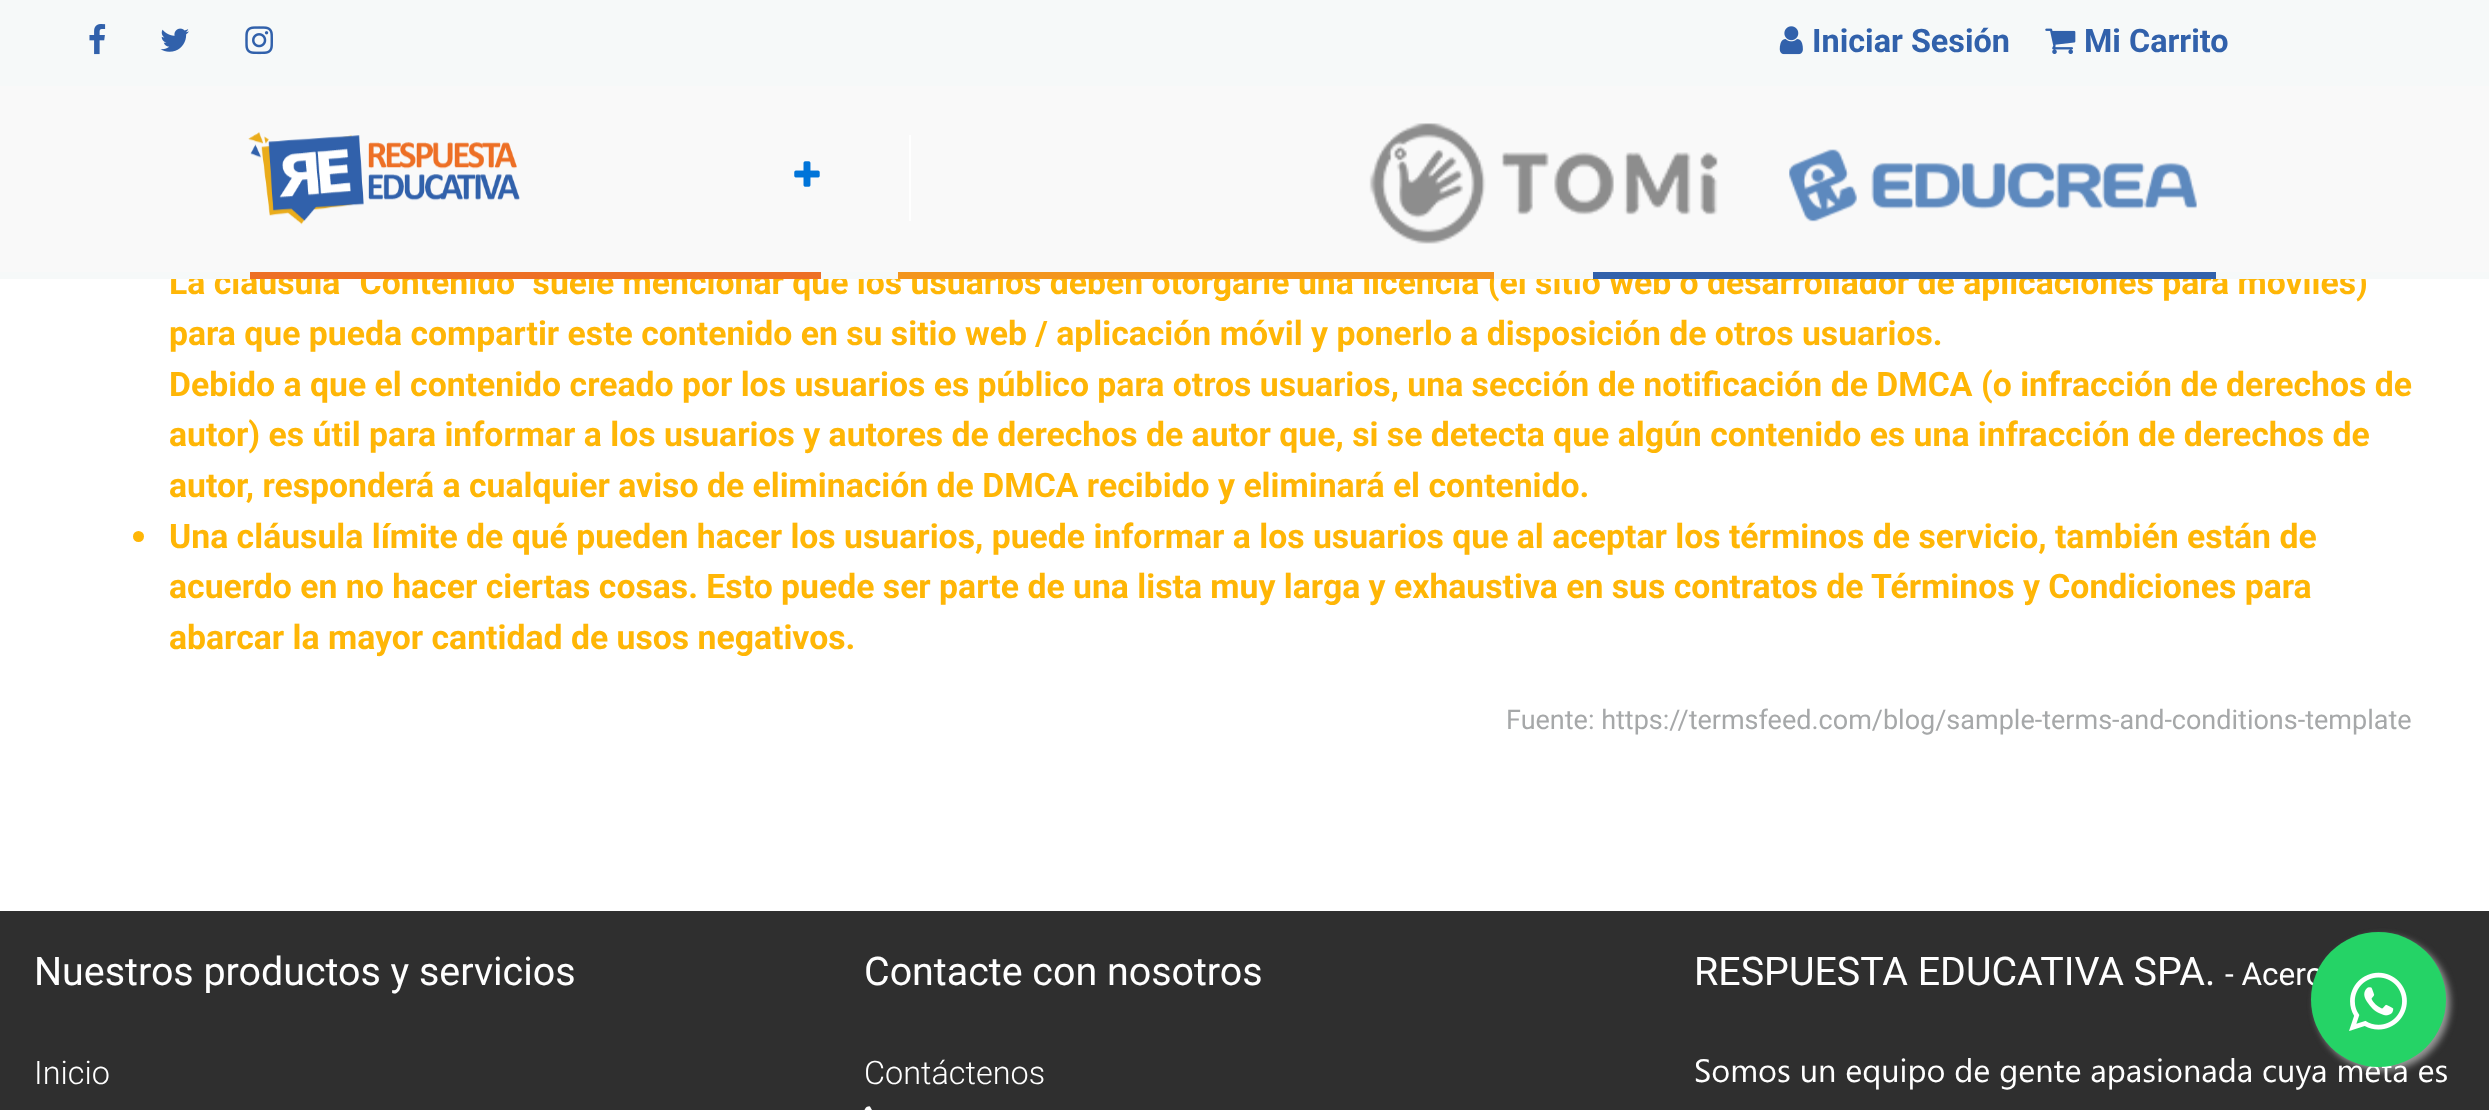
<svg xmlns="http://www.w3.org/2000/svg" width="2489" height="1110">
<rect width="100%" height="100%" fill="#fff"/>
<rect width="2489" height="86" fill="#f6f9f9"/>
<image x="89" y="24" width="17" height="31" href="media/1.png"/>
<image x="160" y="28" width="29" height="24" href="media/2.png"/>
<image x="245" y="26" width="28" height="29" href="media/3.png"/>
<image x="1779" y="26" width="24" height="29" href="media/4.png"/>
<text x="1812" y="52" style="font-family:Roboto;font-size:32.4px;font-weight:bold;fill:#3161ab">Iniciar Sesión</text>
<image x="2045" y="28" width="31" height="26" href="media/5.png"/>
<text x="2084" y="52" style="font-family:Roboto;font-size:32.4px;font-weight:bold;fill:#3161ab">Mi Carrito</text>
<text x="169" y="294" style="font-family:Roboto;font-size:33.75px;font-weight:bold;fill:#ffb606">La cláusula "Contenido" suele mencionar que los usuarios deben otorgarle una licencia (el sitio web o desarrollador de aplicaciones para móviles)</text>
<rect y="86" width="2489" height="186" fill="#f9f9f9"/>
<image x="248" y="132" width="272" height="93" href="media/6.png"/>
<rect x="909" y="135" width="2" height="86" fill="#fff"/>
<image x="794" y="161" width="26" height="26" href="media/7.png"/>
<image x="1369" y="123" width="349" height="121" href="media/8.png"/>
<image x="1789" y="149" width="408" height="73" href="media/9.png"/>
<rect x="2216" y="272" width="273" height="7" fill="#f6f9f9"/>
<rect x="1593" y="272" width="623" height="7" fill="#3161ab"/>
<rect x="1494" y="272" width="99" height="7" fill="#f6f9f9"/>
<rect x="898" y="272" width="596" height="7" fill="#f3951d"/>
<rect x="821" y="272" width="77" height="7" fill="#f6f9f9"/>
<rect x="250" y="272" width="571" height="7" fill="#ed6f25"/>
<rect y="272" width="250" height="7" fill="#f6f9f9"/>
<text x="169" y="345" style="font-family:Roboto;font-size:33.75px;font-weight:bold;fill:#ffb606">para que pueda compartir este contenido en su sitio web / aplicación móvil y ponerlo a disposición de otros usuarios.</text>
<text x="169" y="396" style="font-family:Roboto;font-size:33.75px;font-weight:bold;fill:#ffb606">Debido a que el contenido creado por los usuarios es público para otros usuarios, una sección de notificación de DMCA (o infracción de derechos de</text>
<text x="169" y="446" style="font-family:Roboto;font-size:33.75px;font-weight:bold;fill:#ffb606">autor) es útil para informar a los usuarios y autores de derechos de autor que, si se detecta que algún contenido es una infracción de derechos de</text>
<text x="169" y="497" style="font-family:Roboto;font-size:33.75px;font-weight:bold;fill:#ffb606">autor, responderá a cualquier aviso de eliminación de DMCA recibido y eliminará el contenido.</text>
<circle cx="138.5" cy="536.5" r="5.5" fill="#ffb606"/>
<text x="169" y="548" style="font-family:Roboto;font-size:33.75px;font-weight:bold;fill:#ffb606">Una cláusula límite de qué pueden hacer los usuarios, puede informar a los usuarios que al aceptar los términos de servicio, también están de</text>
<text x="169" y="598" style="font-family:Roboto;font-size:33.75px;font-weight:bold;fill:#ffb606">acuerdo en no hacer ciertas cosas. Esto puede ser parte de una lista muy larga y exhaustiva en sus contratos de Términos y Condiciones para</text>
<text x="169" y="649" style="font-family:Roboto;font-size:33.75px;font-weight:bold;fill:#ffb606">abarcar la mayor cantidad de usos negativos.</text>
<text x="1506" y="729" style="font-family:Roboto;font-size:27px;fill:#a6a8a9">Fuente: https://termsfeed.com/blog/sample-terms-and-conditions-template</text>
<rect y="911" width="2489" height="199" fill="#2f2f2f"/>
<rect x="2315" y="936" width="135" height="135" rx="67.5" fill="#999" filter="blur(3.5px)"/>
<text x="2225" y="985" style="font-family:Roboto;font-size:31.5px;fill:#fff">- Acerc</text>
<text x="1694" y="1082" style="font-family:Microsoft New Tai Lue;font-size:32.4px;fill:#fff">Somos un equipo de gente apasionada cuya meta es</text>
<circle cx="2378.5" cy="999.5" r="67.5" fill="#25d366"/>
<image x="2349" y="972" width="58" height="59" href="media/10.png"/>
<text x="34" y="985" style="font-family:Roboto;font-size:39.4px;fill:#fff">Nuestros productos y servicios</text>
<text x="34" y="1084" style="font-family:Roboto;font-size:32.4px;font-weight:300;fill:#fff">Inicio</text>
<text x="864" y="985" style="font-family:Roboto;font-size:39.4px;fill:#fff">Contacte con nosotros</text>
<text x="864" y="1084" style="font-family:Roboto;font-size:32.4px;font-weight:300;fill:#fff">Contáctenos</text>
<image x="864" y="1106" width="8" height="4" href="media/11.png"/>
<text x="1694" y="985" style="font-family:Roboto;font-size:39.4px;fill:#fff">RESPUESTA EDUCATIVA SPA.</text>
</svg>
